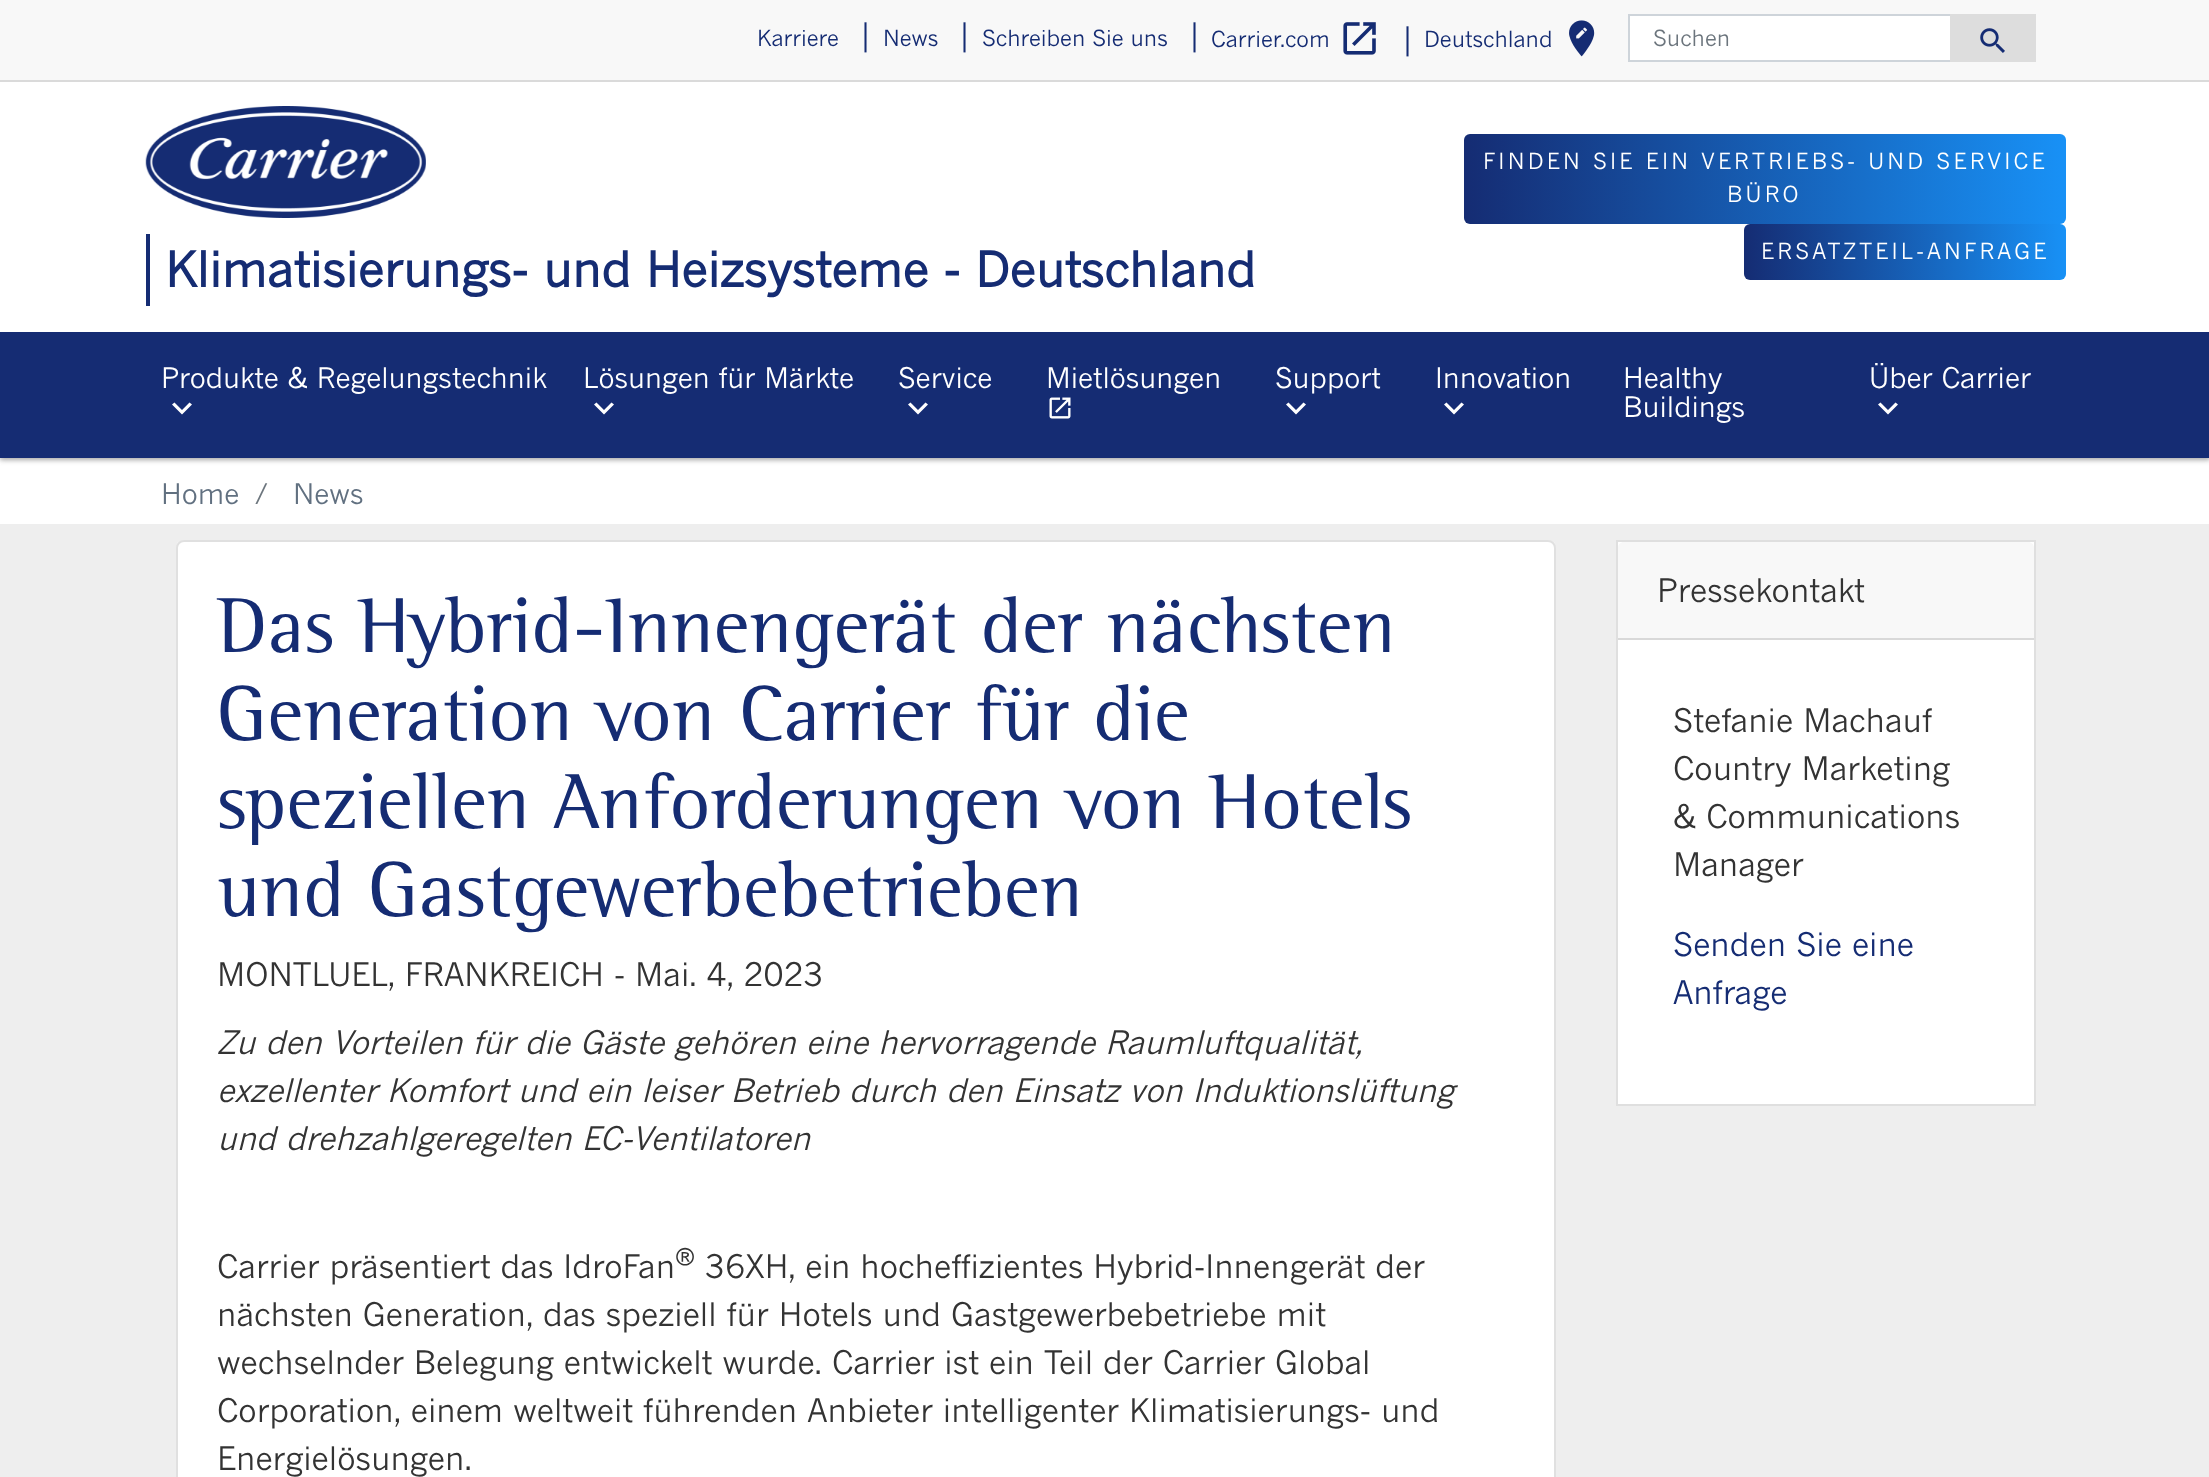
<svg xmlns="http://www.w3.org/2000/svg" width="2209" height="1477">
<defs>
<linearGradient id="g1" gradientUnits="userSpaceOnUse" x1="2066" y1="179" x2="1464" y2="179"><stop offset="0" stop-color="#1891f6"/><stop offset="1" stop-color="#152c73"/></linearGradient>
<linearGradient id="g2" gradientUnits="userSpaceOnUse" x1="2066" y1="252" x2="1744" y2="252"><stop offset="0" stop-color="#1891f6"/><stop offset="1" stop-color="#152c73"/></linearGradient>
</defs>
<rect width="100%" height="100%" fill="#eee"/>
<rect y="458" width="2209" height="66" fill="#fff"/>
<rect y="2" width="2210" height="458" fill="#0000001f" filter="blur(3px)"/>
<rect y="2" width="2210" height="458" fill="#0000003d" filter="blur(2px)"/>
<rect y="82" width="2209" height="250" fill="#fff"/>
<rect width="2209" height="80" fill="#f8f8f8"/>
<rect y="80" width="2209" height="2" fill="#dadada"/>
<text x="757" y="46" style="font-family:'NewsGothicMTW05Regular';font-size:22px;fill:#152c73">Karriere</text>
<text x="857" y="46" style="font-family:'NewsGothicMTW05Regular';font-size:32px;fill:#152c73">|</text>
<text x="883" y="46" style="font-family:'NewsGothicMTW05Regular';font-size:22px;fill:#152c73">News</text>
<text x="956" y="46" style="font-family:'NewsGothicMTW05Regular';font-size:32px;fill:#152c73">|</text>
<text x="982" y="46" style="font-family:'NewsGothicMTW05Regular';font-size:22px;fill:#152c73">Schreiben Sie uns</text>
<text x="1186" y="46" style="font-family:'NewsGothicMTW05Regular';font-size:32px;fill:#152c73">|</text>
<text x="1211" y="47" style="font-family:'NewsGothicMTW05Regular';font-size:22px;fill:#152c73">Carrier.com</text>
<image x="1343" y="22" width="33" height="33" href="media/1.png"/>
<text x="1399" y="50" style="font-family:'NewsGothicMTW05Regular';font-size:32px;fill:#152c73">|</text>
<text x="1424" y="47" style="font-family:'NewsGothicMTW05Regular';font-size:22px;fill:#152c73">Deutschland</text>
<image x="1569" y="20" width="26" height="37" href="media/2.png"/>
<rect x="1629" y="15" width="322" height="46" fill="#fff" stroke="#ced4da" stroke-width="2"/>
<text x="1653" y="46" style="font-family:'NewsGothicMTW05Regular';font-size:22px;fill:#6c757d">Suchen</text>
<rect x="1950" y="14" width="86" height="48" fill="#ddd"/>
<image x="1980" y="28" width="25" height="25" href="media/3.png"/>
<rect x="1464" y="134" width="602" height="90" rx="6" fill="url(#g1)"/>
<text x="1483" y="169" style="font-family:'NewsGothicMTW05Regular';font-size:22px;letter-spacing:3.2px;fill:#fff">FINDEN SIE EIN VERTRIEBS- UND SERVICE</text>
<text x="1727" y="202" style="font-family:'NewsGothicMTW05Regular';font-size:22px;letter-spacing:3.2px;fill:#fff">BÜRO</text>
<rect x="1744" y="224" width="322" height="56" rx="6" fill="url(#g2)"/>
<text x="1761" y="259" style="font-family:'NewsGothicMTW05Regular';font-size:22px;letter-spacing:3.2px;fill:#fff">ERSATZTEIL-ANFRAGE</text>
<image x="145" y="106" width="281" height="112" href="media/4.png"/>
<rect x="146" y="234" width="4" height="72" fill="#152c73"/>
<text x="165" y="287" style="font-family:'NewsGothicMTW05Regular';font-size:48px;font-weight:bold;fill:#152c73">Klimatisierungs- und Heizsysteme - Deutschland</text>
<rect y="332" width="2209" height="126" fill="#152c73"/>
<text x="161" y="388" style="font-family:'NewsGothicMTW05Regular';font-size:28px;fill:#fff">Produkte &amp; Regelungstechnik</text>
<path d="M189.5 402.5l2.5 2l-10 10l-10-10l2.5-2l7.5 7.5z" fill="#fff"/>
<text x="583" y="388" style="font-family:'NewsGothicMTW05Regular';font-size:28px;fill:#fff">Lösungen für Märkte</text>
<path d="M611.5 402.5l2.5 2l-10 10l-10-10l2.5-2l7.5 7.5z" fill="#fff"/>
<text x="898" y="388" style="font-family:'NewsGothicMTW05Regular';font-size:28px;fill:#fff">Service</text>
<path d="M925.5 402.5l2.5 2l-10 10l-10-10l2.5-2l7.5 7.5z" fill="#fff"/>
<text x="1046" y="388" style="font-family:'NewsGothicMTW05Regular';font-size:28px;fill:#fff">Mietlösungen</text>
<image x="1049" y="397" width="22" height="22" href="media/5.png"/>
<text x="1275" y="388" style="font-family:'NewsGothicMTW05Regular';font-size:28px;fill:#fff">Support</text>
<path d="M1303.5 402.5l2.5 2l-10 10l-10-10l2.5-2l7.5 7.5z" fill="#fff"/>
<text x="1435" y="388" style="font-family:'NewsGothicMTW05Regular';font-size:28px;fill:#fff">Innovation</text>
<path d="M1461.5 402.5l2.5 2l-10 10l-10-10l2.5-2l7.5 7.5z" fill="#fff"/>
<text x="1623" y="388" style="font-family:'NewsGothicMTW05Regular';font-size:28px;fill:#fff">Healthy</text>
<text x="1623" y="417" style="font-family:'NewsGothicMTW05Regular';font-size:28px;fill:#fff">Buildings</text>
<text x="1869" y="388" style="font-family:'NewsGothicMTW05Regular';font-size:28px;fill:#fff">Über Carrier</text>
<path d="M1895.5 402.5l2.5 2l-10 10l-10-10l2.5-2l7.5 7.5z" fill="#fff"/>
<text x="161" y="504" style="font-family:'NewsGothicMTW05Regular';font-size:28px;fill:#617080">Home</text>
<text x="255" y="504" style="font-family:'NewsGothicMTW05Regular';font-size:28px;fill:#6c757d">/</text>
<text x="293" y="504" style="font-family:'NewsGothicMTW05Regular';font-size:28px;fill:#617080">News</text>
<rect x="176" y="540" width="1380" height="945" rx="8" fill="#fff"/>
<rect x="177" y="541" width="1378" height="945" rx="7" fill="none" stroke="#0000001f" stroke-width="2"/>
<text x="217" y="652" style="font-family:'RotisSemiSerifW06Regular';font-size:80px;fill:#152c73">Das Hybrid-Innengerät der nächsten</text>
<text x="217" y="740" style="font-family:'RotisSemiSerifW06Regular';font-size:80px;fill:#152c73">Generation von Carrier für die</text>
<text x="217" y="828" style="font-family:'RotisSemiSerifW06Regular';font-size:80px;fill:#152c73">speziellen Anforderungen von Hotels</text>
<text x="217" y="916" style="font-family:'RotisSemiSerifW06Regular';font-size:80px;fill:#152c73">und Gastgewerbebetrieben</text>
<text x="217" y="986" style="font-family:'NewsGothicMTW05Regular';font-size:32px;fill:#333">MONTLUEL, FRANKREICH - Mai. 4, 2023</text>
<text x="217" y="1054" style="font-family:'NewsGothicMTW05Regular';font-size:32px;font-style:italic;fill:#333">Zu den Vorteilen für die Gäste gehören eine hervorragende Raumluftqualität,</text>
<text x="217" y="1102" style="font-family:'NewsGothicMTW05Regular';font-size:32px;font-style:italic;fill:#333">exzellenter Komfort und ein leiser Betrieb durch den Einsatz von Induktionslüftung</text>
<text x="217" y="1150" style="font-family:'NewsGothicMTW05Regular';font-size:32px;font-style:italic;fill:#333">und drehzahlgeregelten EC-Ventilatoren</text>
<text x="217" y="1278" style="font-family:'NewsGothicMTW05Regular';font-size:32px;fill:#333">Carrier präsentiert das IdroFan</text>
<text x="675" y="1266" style="font-family:'NewsGothicMTW05Regular';font-size:24px;fill:#333">®</text>
<text x="705" y="1278" style="font-family:'NewsGothicMTW05Regular';font-size:32px;fill:#333">36XH, ein hocheffizientes Hybrid-Innengerät der</text>
<text x="217" y="1326" style="font-family:'NewsGothicMTW05Regular';font-size:32px;fill:#333">nächsten Generation, das speziell für Hotels und Gastgewerbebetriebe mit</text>
<text x="217" y="1374" style="font-family:'NewsGothicMTW05Regular';font-size:32px;fill:#333">wechselnder Belegung entwickelt wurde. Carrier ist ein Teil der Carrier Global</text>
<text x="217" y="1422" style="font-family:'NewsGothicMTW05Regular';font-size:32px;fill:#333">Corporation, einem weltweit führenden Anbieter intelligenter Klimatisierungs- und</text>
<text x="217" y="1470" style="font-family:'NewsGothicMTW05Regular';font-size:32px;fill:#333">Energielösungen.</text>
<rect x="1617" y="541" width="418" height="564" fill="#fff" stroke="#dfdfdf" stroke-width="2"/>
<path d="M1624 542h404c3.5 0 6 2.5 6 6v92h-416v-92c0-3.5 2.5-6 6-6z" fill="#f8f8f8"/>
<rect x="1618" y="638" width="416" height="2" fill="#d9d9d9"/>
<text x="1657" y="602" style="font-family:'NewsGothicMTW05Regular';font-size:32px;fill:#333">Pressekontakt</text>
<text x="1673" y="732" style="font-family:'NewsGothicMTW05Regular';font-size:32px;fill:#333">Stefanie Machauf</text>
<text x="1673" y="780" style="font-family:'NewsGothicMTW05Regular';font-size:32px;fill:#333">Country Marketing</text>
<text x="1673" y="828" style="font-family:'NewsGothicMTW05Regular';font-size:32px;fill:#333">&amp; Communications</text>
<text x="1673" y="876" style="font-family:'NewsGothicMTW05Regular';font-size:32px;fill:#333">Manager</text>
<text x="1673" y="956" style="font-family:'NewsGothicMTW05Regular';font-size:32px;fill:#152c73">Senden Sie eine</text>
<text x="1673" y="1004" style="font-family:'NewsGothicMTW05Regular';font-size:32px;fill:#152c73">Anfrage</text>
</svg>
